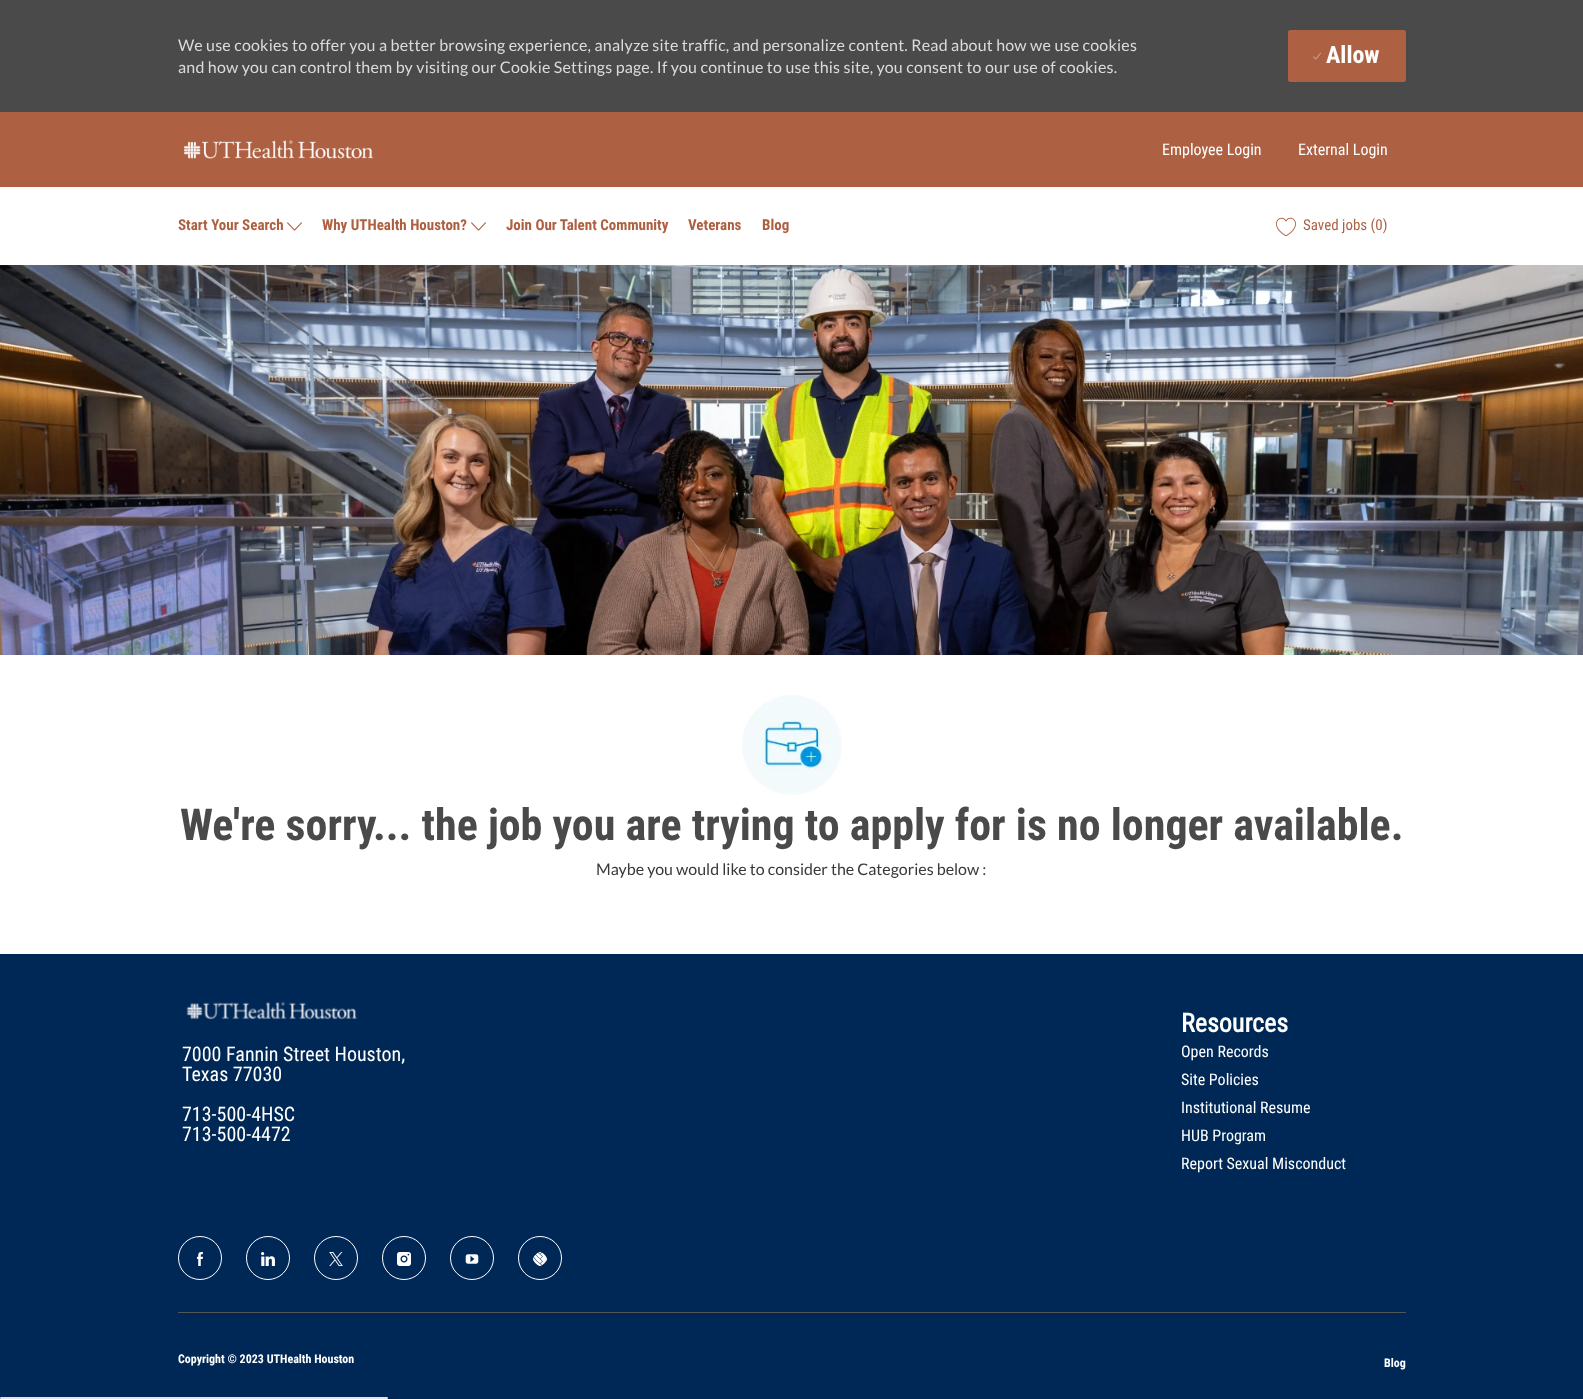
<svg xmlns="http://www.w3.org/2000/svg" width="1583" height="1399">
<rect width="100%" height="100%" fill="#fff"/>
<rect width="1583" height="112" fill="#4a4a4a"/>
<text x="178" y="51" style="font-family:Lato;font-size:16px;letter-spacing:0.2px;fill:#dbdbdb">We use cookies to offer you a better browsing experience, analyze site traffic, and personalize content. Read about how we use cookies</text>
<text x="178" y="73" style="font-family:Lato;font-size:16px;letter-spacing:0.2px;fill:#dbdbdb">and how you can control them by visiting our Cookie Settings page. If you continue to use this site, you consent to our use of cookies.</text>
<rect x="1288.5" y="30.5" width="117" height="51" rx="1.5" fill="#ae6042" stroke="#ae6042"/>
<image x="1313" y="52" width="8" height="8" href="media/1.png"/>
<text x="1326" y="63" style="font-family:'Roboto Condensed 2';font-size:24px;font-weight:bold;fill:#fff">Allow</text>
<rect y="112" width="1583" height="75" fill="#ae6042"/>
<image x="184" y="140" width="189" height="19" href="media/2.png"/>
<text x="1162" y="155" style="font-family:Roboto Condensed;font-size:16px;fill:#fff">Employee Login</text>
<text x="1298" y="155" style="font-family:Roboto Condensed;font-size:16px;fill:#fff">External Login</text>
<text x="178" y="230" style="font-family:'Roboto Condensed 2';font-size:15px;font-weight:bold;fill:#ae6042">Start Your Search</text>
<image x="287" y="222" width="15" height="9" href="media/3.png"/>
<text x="322" y="230" style="font-family:'Roboto Condensed 2';font-size:15px;font-weight:bold;fill:#ae6042">Why UTHealth Houston?</text>
<image x="471" y="222" width="15" height="9" href="media/3.png"/>
<text x="506" y="230" style="font-family:'Roboto Condensed 2';font-size:15px;font-weight:bold;fill:#ae6042">Join Our Talent Community</text>
<text x="688" y="230" style="font-family:'Roboto Condensed 2';font-size:15px;font-weight:bold;fill:#ae6042">Veterans</text>
<text x="762" y="230" style="font-family:'Roboto Condensed 2';font-size:15px;font-weight:bold;fill:#ae6042">Blog</text>
<image x="1276" y="217" width="20" height="20" href="media/4.png"/>
<text x="1303" y="230" style="font-family:Roboto Condensed;font-size:15px;fill:#ae6042">Saved jobs (0)</text>
<image x="0" y="265" width="1583" height="390" href="media/5.png"/>
<image x="742" y="695" width="100" height="100" href="media/6.png"/>
<text x="180" y="840" style="font-family:'Roboto Condensed 2';font-size:44px;font-weight:bold;fill:#4a4a4a">We're sorry... the job you are trying to apply for is no longer available.</text>
<text x="596" y="875" style="font-family:Lato;font-size:16px;fill:#393939">Maybe you would like to consider the Categories below :</text>
<rect y="954" width="1583" height="445" fill="#002856"/>
<rect y="1397" width="388" height="2" rx="1" fill="#e4e4e4"/>
<image x="186" y="1001" width="172" height="19" href="media/7.png"/>
<text x="182" y="1061" style="font-family:Roboto Condensed;font-size:20px;fill:#fff">7000 Fannin Street Houston,</text>
<text x="182" y="1081" style="font-family:Roboto Condensed;font-size:20px;fill:#fff">Texas 77030</text>
<text x="182" y="1121" style="font-family:Roboto Condensed;font-size:20px;fill:#fff">713-500-4HSC</text>
<text x="182" y="1141" style="font-family:Roboto Condensed;font-size:20px;fill:#fff">713-500-4472</text>
<text x="1181" y="1032" style="font-family:Roboto Condensed;font-size:26px;font-weight:bold;fill:#fff">Resources</text>
<text x="1181" y="1057" style="font-family:Roboto Condensed;font-size:16px;fill:#fff">Open Records</text>
<text x="1181" y="1085" style="font-family:Roboto Condensed;font-size:16px;fill:#fff">Site Policies</text>
<text x="1181" y="1113" style="font-family:Roboto Condensed;font-size:16px;fill:#fff">Institutional Resume</text>
<text x="1181" y="1141" style="font-family:Roboto Condensed;font-size:16px;fill:#fff">HUB Program</text>
<text x="1181" y="1169" style="font-family:Roboto Condensed;font-size:16px;fill:#fff">Report Sexual Misconduct</text>
<circle cx="200" cy="1258" r="21.5" fill="none" stroke="#fff"/>
<image x="196" y="1252" width="7" height="14" href="media/8.png"/>
<circle cx="268" cy="1258" r="21.5" fill="none" stroke="#fff"/>
<image x="261" y="1252" width="14" height="14" href="media/9.png"/>
<circle cx="336" cy="1258" r="21.5" fill="none" stroke="#fff"/>
<image x="329" y="1252" width="14" height="14" href="media/10.png"/>
<circle cx="404" cy="1258" r="21.5" fill="none" stroke="#fff"/>
<image x="397" y="1252" width="14" height="14" href="media/11.png"/>
<circle cx="472" cy="1258" r="21.5" fill="none" stroke="#fff"/>
<image x="465" y="1254" width="14" height="10" href="media/12.png"/>
<circle cx="540" cy="1258" r="21.5" fill="none" stroke="#fff"/>
<image x="533" y="1252" width="14" height="14" href="media/13.png"/>
<rect x="178" y="1312" width="1228" height="1" fill="#555"/>
<text x="178" y="1363" style="font-family:'Roboto Condensed 2';font-size:12px;font-weight:bold;fill:#fff">Copyright © 2023 UTHealth Houston</text>
<text x="1384" y="1367" style="font-family:'Roboto Condensed 2';font-size:12px;font-weight:bold;fill:#fff">Blog</text>
</svg>
